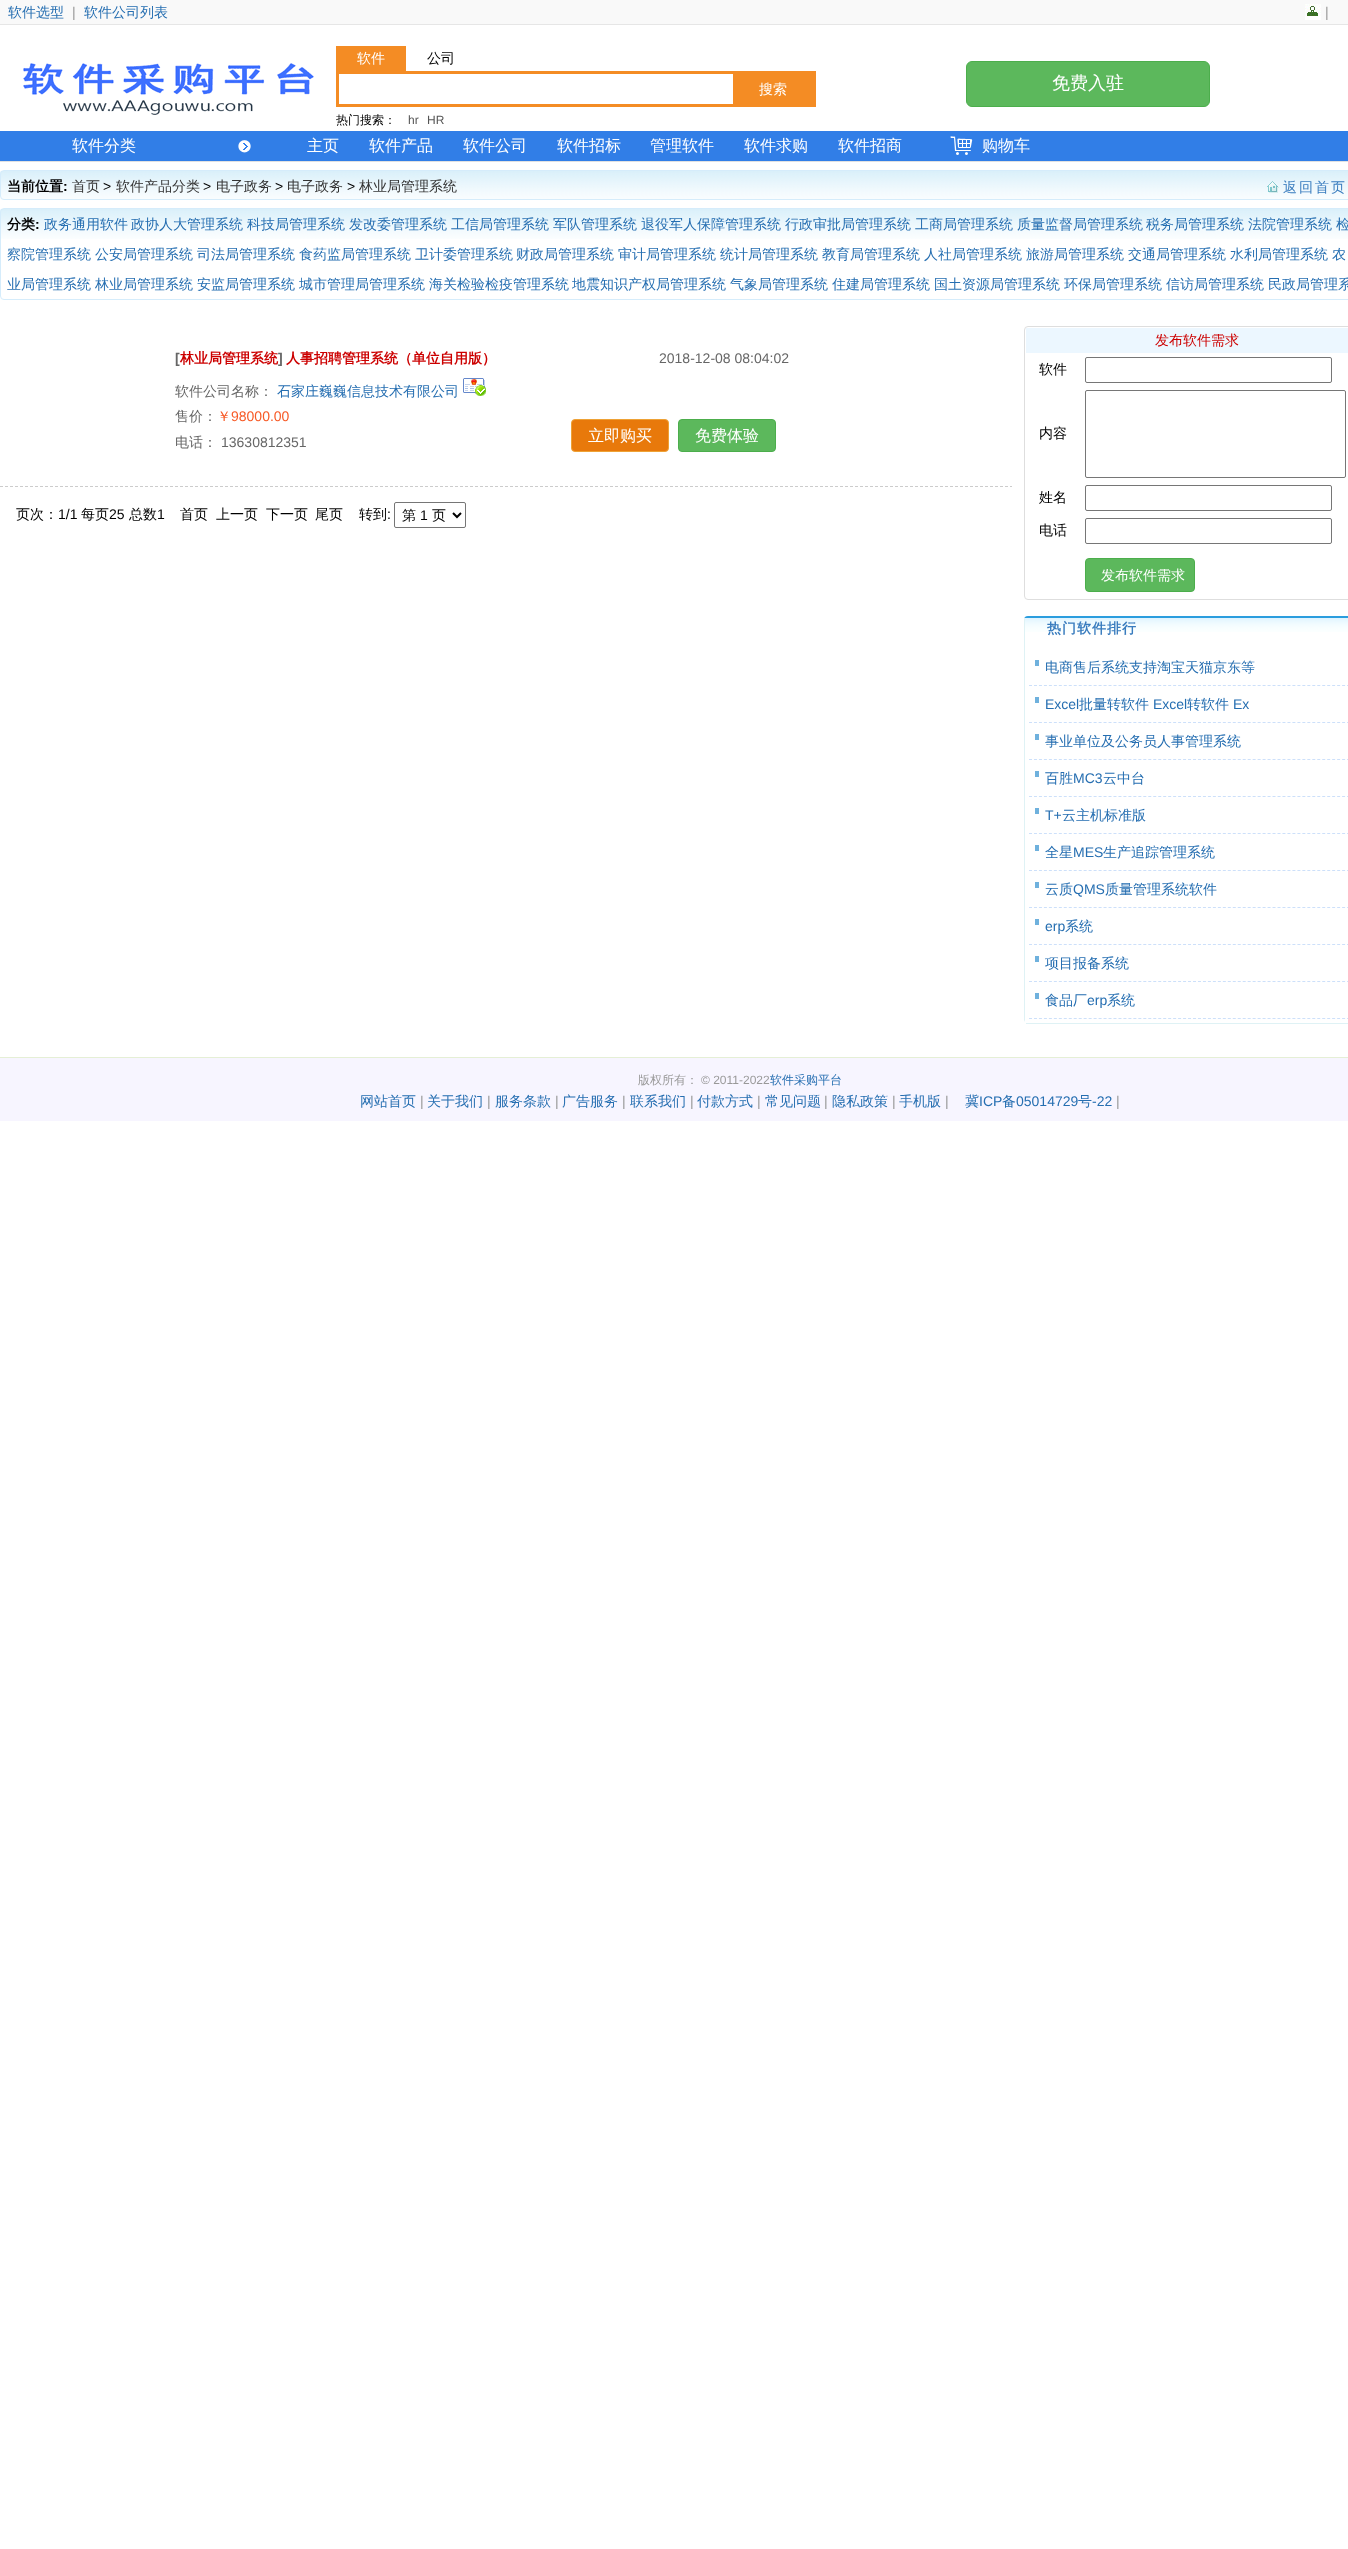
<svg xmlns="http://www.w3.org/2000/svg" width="1348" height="2549">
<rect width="100%" height="100%" fill="#fff"/>
<rect width="1348" height="24" fill="#f9f9f9"/>
<rect y="24" width="1348" height="1" fill="#e6e6e6"/>
<text x="8" y="17" style="font-family:WenQuanYi Zen Hei;font-size:14px;font-weight:500;fill:#256eb1">软件选型</text>
<text x="72" y="17" style="font-family:Liberation Sans;font-size:14px;fill:#999">|</text>
<text x="84" y="17" style="font-family:WenQuanYi Zen Hei;font-size:14px;font-weight:500;fill:#256eb1">软件公司列表</text>
<image x="1305" y="4" width="16" height="16" href="media/1.png"/>
<text x="1325" y="17" style="font-family:Liberation Sans;font-size:14px;fill:#999">|</text>
<image x="23" y="63" width="291" height="52" href="media/2.png"/>
<rect x="336" y="46" width="70" height="25" fill="#f48c24"/>
<text x="357" y="63" style="font-family:WenQuanYi Zen Hei;font-size:14px;font-weight:500;fill:#fff">软件</text>
<text x="427" y="63" style="font-family:WenQuanYi Zen Hei;font-size:14px;font-weight:500;fill:#000">公司</text>
<rect x="337.5" y="72.5" width="477" height="33" fill="none" stroke="#f48c24" stroke-width="3"/>
<rect x="733" y="74" width="80" height="30" fill="#f48c24"/>
<text x="759" y="94" style="font-family:WenQuanYi Zen Hei;font-size:14px;font-weight:500;fill:#fff">搜索</text>
<text x="336" y="124" style="font-family:WenQuanYi Zen Hei;font-size:12px;font-weight:500;fill:#000">热门搜索：</text>
<text x="408" y="124" style="font-family:Liberation Sans;font-size:12px;fill:#555">hr</text>
<text x="427" y="124" style="font-family:Liberation Sans;font-size:12px;fill:#555">HR</text>
<rect x="966.5" y="61.5" width="243" height="45" rx="5.5" fill="#5cb85c" stroke="#4cae4c"/>
<text x="1052" y="89" style="font-family:WenQuanYi Zen Hei;font-size:18px;font-weight:500;fill:#fff">免费入驻</text>
<rect y="131" width="1348" height="30" fill="#317ee7"/>
<rect y="161" width="1348" height="1" fill="#e1e1e1"/>
<text x="72" y="151" style="font-family:WenQuanYi Zen Hei;font-size:16px;font-weight:500;fill:#fff">软件分类</text>
<image x="238" y="140" width="13" height="13" href="media/3.png"/>
<text x="307" y="151" style="font-family:WenQuanYi Zen Hei;font-size:16px;font-weight:500;fill:#fff">主页</text>
<text x="369" y="151" style="font-family:WenQuanYi Zen Hei;font-size:16px;font-weight:500;fill:#fff">软件产品</text>
<text x="463" y="151" style="font-family:WenQuanYi Zen Hei;font-size:16px;font-weight:500;fill:#fff">软件公司</text>
<text x="557" y="151" style="font-family:WenQuanYi Zen Hei;font-size:16px;font-weight:500;fill:#fff">软件招标</text>
<text x="650" y="151" style="font-family:WenQuanYi Zen Hei;font-size:16px;font-weight:500;fill:#fff">管理软件</text>
<text x="744" y="151" style="font-family:WenQuanYi Zen Hei;font-size:16px;font-weight:500;fill:#fff">软件求购</text>
<text x="838" y="151" style="font-family:WenQuanYi Zen Hei;font-size:16px;font-weight:500;fill:#fff">软件招商</text>
<image x="950" y="136" width="23" height="19" href="media/4.png"/>
<text x="982" y="151" style="font-family:WenQuanYi Zen Hei;font-size:16px;font-weight:500;fill:#fff">购物车</text>
<image x="0" y="171" width="1348" height="29" href="media/5.png"/>
<rect x="0.5" y="170.5" width="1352" height="29" rx="3.5" fill="none" stroke="#d5ecfb"/>
<text x="7" y="191" style="font-family:WenQuanYi Zen Hei;font-size:14px;font-weight:bold;fill:#000">当前位置</text>
<text x="63" y="191" style="font-family:Liberation Sans;font-size:14px;font-weight:bold;fill:#000">:</text>
<text x="72" y="191" style="font-family:WenQuanYi Zen Hei;font-size:14px;font-weight:500;fill:#333">首页</text>
<text x="103" y="191" style="font-family:Liberation Sans;font-size:14px;fill:#000">&gt;</text>
<text x="116" y="191" style="font-family:WenQuanYi Zen Hei;font-size:14px;font-weight:500;fill:#333">软件产品分类</text>
<text x="203" y="191" style="font-family:Liberation Sans;font-size:14px;fill:#000">&gt;</text>
<text x="216" y="191" style="font-family:WenQuanYi Zen Hei;font-size:14px;font-weight:500;fill:#333">电子政务</text>
<text x="275" y="191" style="font-family:Liberation Sans;font-size:14px;fill:#000">&gt;</text>
<text x="287" y="191" style="font-family:WenQuanYi Zen Hei;font-size:14px;font-weight:500;fill:#333">电子政务</text>
<text x="347" y="191" style="font-family:Liberation Sans;font-size:14px;fill:#000">&gt;</text>
<text x="359" y="191" style="font-family:WenQuanYi Zen Hei;font-size:14px;font-weight:500;fill:#333">林业局管理系统</text>
<image x="1267" y="181" width="12" height="12" href="media/6.png"/>
<text x="1283" y="192" style="font-family:WenQuanYi Zen Hei;font-size:14px;font-weight:500;letter-spacing:2px;fill:#397cbe">返回首页</text>
<image x="0" y="209" width="1348" height="30" href="media/7.png"/>
<rect x="0.5" y="208.5" width="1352" height="91" rx="3.5" fill="none" stroke="#d5ecfb"/>
<text x="7" y="229" style="font-family:WenQuanYi Zen Hei;font-size:14px;font-weight:bold;fill:#000">分类</text>
<text x="35" y="229" style="font-family:Liberation Sans;font-size:14px;font-weight:bold;fill:#000">:</text>
<text x="44" y="229" style="font-family:WenQuanYi Zen Hei;font-size:14px;font-weight:500;fill:#256eb1">政务通用软件</text>
<text x="131" y="229" style="font-family:WenQuanYi Zen Hei;font-size:14px;font-weight:500;fill:#256eb1">政协人大管理系统</text>
<text x="247" y="229" style="font-family:WenQuanYi Zen Hei;font-size:14px;font-weight:500;fill:#256eb1">科技局管理系统</text>
<text x="349" y="229" style="font-family:WenQuanYi Zen Hei;font-size:14px;font-weight:500;fill:#256eb1">发改委管理系统</text>
<text x="451" y="229" style="font-family:WenQuanYi Zen Hei;font-size:14px;font-weight:500;fill:#256eb1">工信局管理系统</text>
<text x="553" y="229" style="font-family:WenQuanYi Zen Hei;font-size:14px;font-weight:500;fill:#256eb1">军队管理系统</text>
<text x="641" y="229" style="font-family:WenQuanYi Zen Hei;font-size:14px;font-weight:500;fill:#256eb1">退役军人保障管理系统</text>
<text x="785" y="229" style="font-family:WenQuanYi Zen Hei;font-size:14px;font-weight:500;fill:#256eb1">行政审批局管理系统</text>
<text x="915" y="229" style="font-family:WenQuanYi Zen Hei;font-size:14px;font-weight:500;fill:#256eb1">工商局管理系统</text>
<text x="1017" y="229" style="font-family:WenQuanYi Zen Hei;font-size:14px;font-weight:500;fill:#256eb1">质量监督局管理系统</text>
<text x="1146" y="229" style="font-family:WenQuanYi Zen Hei;font-size:14px;font-weight:500;fill:#256eb1">税务局管理系统</text>
<text x="1248" y="229" style="font-family:WenQuanYi Zen Hei;font-size:14px;font-weight:500;fill:#256eb1">法院管理系统</text>
<text x="1336" y="229" style="font-family:WenQuanYi Zen Hei;font-size:14px;font-weight:500;fill:#256eb1">检</text>
<text x="7" y="259" style="font-family:WenQuanYi Zen Hei;font-size:14px;font-weight:500;fill:#256eb1">察院管理系统</text>
<text x="95" y="259" style="font-family:WenQuanYi Zen Hei;font-size:14px;font-weight:500;fill:#256eb1">公安局管理系统</text>
<text x="197" y="259" style="font-family:WenQuanYi Zen Hei;font-size:14px;font-weight:500;fill:#256eb1">司法局管理系统</text>
<text x="299" y="259" style="font-family:WenQuanYi Zen Hei;font-size:14px;font-weight:500;fill:#256eb1">食药监局管理系统</text>
<text x="415" y="259" style="font-family:WenQuanYi Zen Hei;font-size:14px;font-weight:500;fill:#256eb1">卫计委管理系统</text>
<text x="516" y="259" style="font-family:WenQuanYi Zen Hei;font-size:14px;font-weight:500;fill:#256eb1">财政局管理系统</text>
<text x="618" y="259" style="font-family:WenQuanYi Zen Hei;font-size:14px;font-weight:500;fill:#256eb1">审计局管理系统</text>
<text x="720" y="259" style="font-family:WenQuanYi Zen Hei;font-size:14px;font-weight:500;fill:#256eb1">统计局管理系统</text>
<text x="822" y="259" style="font-family:WenQuanYi Zen Hei;font-size:14px;font-weight:500;fill:#256eb1">教育局管理系统</text>
<text x="924" y="259" style="font-family:WenQuanYi Zen Hei;font-size:14px;font-weight:500;fill:#256eb1">人社局管理系统</text>
<text x="1026" y="259" style="font-family:WenQuanYi Zen Hei;font-size:14px;font-weight:500;fill:#256eb1">旅游局管理系统</text>
<text x="1128" y="259" style="font-family:WenQuanYi Zen Hei;font-size:14px;font-weight:500;fill:#256eb1">交通局管理系统</text>
<text x="1230" y="259" style="font-family:WenQuanYi Zen Hei;font-size:14px;font-weight:500;fill:#256eb1">水利局管理系统</text>
<text x="1332" y="259" style="font-family:WenQuanYi Zen Hei;font-size:14px;font-weight:500;fill:#256eb1">农</text>
<text x="7" y="289" style="font-family:WenQuanYi Zen Hei;font-size:14px;font-weight:500;fill:#256eb1">业局管理系统</text>
<text x="95" y="289" style="font-family:WenQuanYi Zen Hei;font-size:14px;font-weight:500;fill:#256eb1">林业局管理系统</text>
<text x="197" y="289" style="font-family:WenQuanYi Zen Hei;font-size:14px;font-weight:500;fill:#256eb1">安监局管理系统</text>
<text x="299" y="289" style="font-family:WenQuanYi Zen Hei;font-size:14px;font-weight:500;fill:#256eb1">城市管理局管理系统</text>
<text x="429" y="289" style="font-family:WenQuanYi Zen Hei;font-size:14px;font-weight:500;fill:#256eb1">海关检验检疫管理系统</text>
<text x="572" y="289" style="font-family:WenQuanYi Zen Hei;font-size:14px;font-weight:500;fill:#256eb1">地震知识产权局管理系统</text>
<text x="730" y="289" style="font-family:WenQuanYi Zen Hei;font-size:14px;font-weight:500;fill:#256eb1">气象局管理系统</text>
<text x="832" y="289" style="font-family:WenQuanYi Zen Hei;font-size:14px;font-weight:500;fill:#256eb1">住建局管理系统</text>
<text x="934" y="289" style="font-family:WenQuanYi Zen Hei;font-size:14px;font-weight:500;fill:#256eb1">国土资源局管理系统</text>
<text x="1064" y="289" style="font-family:WenQuanYi Zen Hei;font-size:14px;font-weight:500;fill:#256eb1">环保局管理系统</text>
<text x="1166" y="289" style="font-family:WenQuanYi Zen Hei;font-size:14px;font-weight:500;fill:#256eb1">信访局管理系统</text>
<text x="1268" y="289" style="font-family:WenQuanYi Zen Hei;font-size:14px;font-weight:500;fill:#256eb1">民政局管理系</text>
<path d="M0 486.5h1012" fill="none" stroke="#ccc" stroke-dasharray="3 2"/>
<text x="175" y="363" style="font-family:Liberation Sans;font-size:14px;font-weight:bold;fill:#666">[</text>
<text x="180" y="363" style="font-family:WenQuanYi Zen Hei;font-size:14px;font-weight:bold;fill:#c00">林业局管理系统</text>
<text x="278" y="363" style="font-family:Liberation Sans;font-size:14px;font-weight:bold;fill:#666">]</text>
<text x="286" y="363" style="font-family:WenQuanYi Zen Hei;font-size:14px;font-weight:bold;fill:#c00">人事招聘管理系统（单位自用版）</text>
<text x="659" y="363" style="font-family:Liberation Sans;font-size:14px;fill:#666">2018-12-08 08:04:02</text>
<text x="175" y="396" style="font-family:WenQuanYi Zen Hei;font-size:14px;font-weight:500;fill:#666">软件公司名称：</text>
<text x="277" y="396" style="font-family:WenQuanYi Zen Hei;font-size:14px;font-weight:500;fill:#256eb1">石家庄巍巍信息技术有限公司</text>
<image x="463" y="378" width="23" height="18" href="media/8.png"/>
<text x="175" y="421" style="font-family:WenQuanYi Zen Hei;font-size:14px;font-weight:500;fill:#666">售价：</text>
<text x="217" y="421" style="font-family:WenQuanYi Zen Hei;font-size:14px;font-weight:500;fill:#f75a26">￥</text>
<text x="231" y="421" style="font-family:Liberation Sans;font-size:14px;fill:#f75a26">98000.00</text>
<text x="175" y="447" style="font-family:WenQuanYi Zen Hei;font-size:14px;font-weight:500;fill:#666">电话：</text>
<text x="221" y="447" style="font-family:Liberation Sans;font-size:14px;fill:#666">13630812351</text>
<rect x="571.5" y="419.5" width="97" height="32" rx="3.5" fill="#e8790b" stroke="#eea236"/>
<text x="588" y="441" style="font-family:WenQuanYi Zen Hei;font-size:16px;font-weight:500;fill:#fff">立即购买</text>
<rect x="678.5" y="419.5" width="97" height="32" rx="3.5" fill="#5cb85c" stroke="#4cae4c"/>
<text x="695" y="441" style="font-family:WenQuanYi Zen Hei;font-size:16px;font-weight:500;fill:#fff">免费体验</text>
<text x="16" y="519" style="font-family:WenQuanYi Zen Hei;font-size:14px;font-weight:500;fill:#000">页次：</text>
<text x="58" y="519" style="font-family:Liberation Sans;font-size:14px;fill:#000">1/1</text>
<text x="81" y="519" style="font-family:WenQuanYi Zen Hei;font-size:14px;font-weight:500;fill:#000">每页</text>
<text x="109" y="519" style="font-family:Liberation Sans;font-size:14px;fill:#000">25</text>
<text x="129" y="519" style="font-family:WenQuanYi Zen Hei;font-size:14px;font-weight:500;fill:#000">总数</text>
<text x="157" y="519" style="font-family:Liberation Sans;font-size:14px;fill:#000">1</text>
<text x="180" y="519" style="font-family:WenQuanYi Zen Hei;font-size:14px;font-weight:500;fill:#000">首页</text>
<text x="216" y="519" style="font-family:WenQuanYi Zen Hei;font-size:14px;font-weight:500;fill:#000">上一页</text>
<text x="266" y="519" style="font-family:WenQuanYi Zen Hei;font-size:14px;font-weight:500;fill:#000">下一页</text>
<text x="315" y="519" style="font-family:WenQuanYi Zen Hei;font-size:14px;font-weight:500;fill:#000">尾页</text>
<text x="359" y="519" style="font-family:WenQuanYi Zen Hei;font-size:14px;font-weight:500;fill:#000">转到</text>
<text x="387" y="519" style="font-family:Liberation Sans;font-size:14px;fill:#000">:</text>
<rect x="394.5" y="502.5" width="71" height="25" rx="1.5" fill="none" stroke="#767676"/>
<path d="M453 513l4 4l4-4" fill="none" stroke="#000" stroke-width="2"/>
<text x="402" y="520" style="font-family:WenQuanYi Zen Hei;font-size:14px;font-weight:500;fill:#000">第</text>
<text x="420" y="520" style="font-family:Liberation Sans;font-size:14px;fill:#000">1</text>
<text x="432" y="520" style="font-family:WenQuanYi Zen Hei;font-size:14px;font-weight:500;fill:#000">页</text>
<rect x="1024.5" y="326.5" width="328" height="273" rx="3.5" fill="none" stroke="#dedede"/>
<rect x="1026" y="328" width="322" height="25" fill="#ecf7ff"/>
<text x="1155" y="345" style="font-family:WenQuanYi Zen Hei;font-size:14px;font-weight:500;fill:#c00">发布软件需求</text>
<text x="1039" y="374" style="font-family:WenQuanYi Zen Hei;font-size:14px;font-weight:500;fill:#000">软件</text>
<rect x="1085.5" y="357.5" width="246" height="25" rx="1.5" fill="none" stroke="#767676"/>
<text x="1039" y="438" style="font-family:WenQuanYi Zen Hei;font-size:14px;font-weight:500;fill:#000">内容</text>
<rect x="1085.5" y="390.5" width="260" height="87" rx="1.5" fill="none" stroke="#767676"/>
<text x="1039" y="502" style="font-family:WenQuanYi Zen Hei;font-size:14px;font-weight:500;fill:#000">姓名</text>
<rect x="1085.5" y="485.5" width="246" height="25" rx="1.5" fill="none" stroke="#767676"/>
<text x="1039" y="535" style="font-family:WenQuanYi Zen Hei;font-size:14px;font-weight:500;fill:#000">电话</text>
<rect x="1085.5" y="518.5" width="246" height="25" rx="1.5" fill="none" stroke="#767676"/>
<rect x="1085.5" y="558.5" width="109" height="33" rx="3.5" fill="#5cb85c" stroke="#4cae4c"/>
<text x="1101" y="580" style="font-family:WenQuanYi Zen Hei;font-size:14px;font-weight:500;fill:#fff">发布软件需求</text>
<image x="1024" y="616" width="324" height="16" href="media/9.png"/>
<rect x="1026" y="1023" width="322" height="1" fill="#dff2f5"/>
<path d="M1024 620v21h1v-23.5c-.5 .5-1 1.5-1 2.5z" fill="#dff2f5"/>
<text x="1047" y="633" style="font-family:WenQuanYi Zen Hei;font-size:14px;font-weight:bold;letter-spacing:1px;fill:#397cbe">热门软件排行</text>
<path d="M1024 641v379l1 2v-381z" fill="#dff2f5"/>
<rect x="1035" y="660" width="4" height="6" fill="#6fb1dd"/>
<path d="M1029 685.5h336" fill="none" stroke="#cde0fa" stroke-dasharray="3 1.97"/>
<text x="1045" y="672" style="font-family:WenQuanYi Zen Hei;font-size:14px;font-weight:500;fill:#256eb1">电商售后系统支持淘宝天猫京东等</text>
<rect x="1035" y="697" width="4" height="6" fill="#6fb1dd"/>
<path d="M1029 722.5h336" fill="none" stroke="#cde0fa" stroke-dasharray="3 1.97"/>
<text x="1045" y="709" style="font-family:Liberation Sans;font-size:14px;fill:#256eb1">Excel</text>
<text x="1079" y="709" style="font-family:WenQuanYi Zen Hei;font-size:14px;font-weight:500;fill:#256eb1">批量转软件</text>
<text x="1153" y="709" style="font-family:Liberation Sans;font-size:14px;fill:#256eb1">Excel</text>
<text x="1187" y="709" style="font-family:WenQuanYi Zen Hei;font-size:14px;font-weight:500;fill:#256eb1">转软件</text>
<text x="1233" y="709" style="font-family:Liberation Sans;font-size:14px;fill:#256eb1">Ex</text>
<rect x="1035" y="734" width="4" height="6" fill="#6fb1dd"/>
<path d="M1029 759.5h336" fill="none" stroke="#cde0fa" stroke-dasharray="3 1.97"/>
<text x="1045" y="746" style="font-family:WenQuanYi Zen Hei;font-size:14px;font-weight:500;fill:#256eb1">事业单位及公务员人事管理系统</text>
<rect x="1035" y="771" width="4" height="6" fill="#6fb1dd"/>
<path d="M1029 796.5h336" fill="none" stroke="#cde0fa" stroke-dasharray="3 1.97"/>
<text x="1045" y="783" style="font-family:WenQuanYi Zen Hei;font-size:14px;font-weight:500;fill:#256eb1">百胜</text>
<text x="1073" y="783" style="font-family:Liberation Sans;font-size:14px;fill:#256eb1">MC3</text>
<text x="1103" y="783" style="font-family:WenQuanYi Zen Hei;font-size:14px;font-weight:500;fill:#256eb1">云中台</text>
<rect x="1035" y="808" width="4" height="6" fill="#6fb1dd"/>
<path d="M1029 833.5h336" fill="none" stroke="#cde0fa" stroke-dasharray="3 1.97"/>
<text x="1045" y="820" style="font-family:Liberation Sans;font-size:14px;fill:#256eb1">T+</text>
<text x="1062" y="820" style="font-family:WenQuanYi Zen Hei;font-size:14px;font-weight:500;fill:#256eb1">云主机标准版</text>
<rect x="1035" y="845" width="4" height="6" fill="#6fb1dd"/>
<path d="M1029 870.5h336" fill="none" stroke="#cde0fa" stroke-dasharray="3 1.97"/>
<text x="1045" y="857" style="font-family:WenQuanYi Zen Hei;font-size:14px;font-weight:500;fill:#256eb1">全星</text>
<text x="1073" y="857" style="font-family:Liberation Sans;font-size:14px;fill:#256eb1">MES</text>
<text x="1103" y="857" style="font-family:WenQuanYi Zen Hei;font-size:14px;font-weight:500;fill:#256eb1">生产追踪管理系统</text>
<rect x="1035" y="882" width="4" height="6" fill="#6fb1dd"/>
<path d="M1029 907.5h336" fill="none" stroke="#cde0fa" stroke-dasharray="3 1.97"/>
<text x="1045" y="894" style="font-family:WenQuanYi Zen Hei;font-size:14px;font-weight:500;fill:#256eb1">云质</text>
<text x="1073" y="894" style="font-family:Liberation Sans;font-size:14px;fill:#256eb1">QMS</text>
<text x="1105" y="894" style="font-family:WenQuanYi Zen Hei;font-size:14px;font-weight:500;fill:#256eb1">质量管理系统软件</text>
<rect x="1035" y="919" width="4" height="6" fill="#6fb1dd"/>
<path d="M1029 944.5h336" fill="none" stroke="#cde0fa" stroke-dasharray="3 1.97"/>
<text x="1045" y="931" style="font-family:Liberation Sans;font-size:14px;fill:#256eb1">erp</text>
<text x="1065" y="931" style="font-family:WenQuanYi Zen Hei;font-size:14px;font-weight:500;fill:#256eb1">系统</text>
<rect x="1035" y="956" width="4" height="6" fill="#6fb1dd"/>
<path d="M1029 981.5h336" fill="none" stroke="#cde0fa" stroke-dasharray="3 1.97"/>
<text x="1045" y="968" style="font-family:WenQuanYi Zen Hei;font-size:14px;font-weight:500;fill:#256eb1">项目报备系统</text>
<rect x="1035" y="993" width="4" height="6" fill="#6fb1dd"/>
<path d="M1029 1018.5h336" fill="none" stroke="#cde0fa" stroke-dasharray="3 1.97"/>
<text x="1045" y="1005" style="font-family:WenQuanYi Zen Hei;font-size:14px;font-weight:500;fill:#256eb1">食品厂</text>
<text x="1087" y="1005" style="font-family:Liberation Sans;font-size:14px;fill:#256eb1">erp</text>
<text x="1107" y="1005" style="font-family:WenQuanYi Zen Hei;font-size:14px;font-weight:500;fill:#256eb1">系统</text>
<rect y="1058" width="1348" height="63" fill="#f7f5ff"/>
<rect y="1057" width="1348" height="1" fill="#e5efd6"/>
<text x="638" y="1084" style="font-family:WenQuanYi Zen Hei;font-size:12px;font-weight:500;fill:#999">版权所有：</text>
<text x="701" y="1084" style="font-family:Liberation Sans;font-size:12px;fill:#999">© 2011-2022</text>
<text x="770" y="1084" style="font-family:WenQuanYi Zen Hei;font-size:12px;font-weight:500;fill:#256eb1">软件采购平台</text>
<text x="360" y="1106" style="font-family:WenQuanYi Zen Hei;font-size:14px;font-weight:500;fill:#256eb1">网站首页</text>
<text x="420" y="1106" style="font-family:Liberation Sans;font-size:14px;fill:#999">|</text>
<text x="427" y="1106" style="font-family:WenQuanYi Zen Hei;font-size:14px;font-weight:500;fill:#256eb1">关于我们</text>
<text x="487" y="1106" style="font-family:Liberation Sans;font-size:14px;fill:#999">|</text>
<text x="495" y="1106" style="font-family:WenQuanYi Zen Hei;font-size:14px;font-weight:500;fill:#256eb1">服务条款</text>
<text x="555" y="1106" style="font-family:Liberation Sans;font-size:14px;fill:#999">|</text>
<text x="562" y="1106" style="font-family:WenQuanYi Zen Hei;font-size:14px;font-weight:500;fill:#256eb1">广告服务</text>
<text x="622" y="1106" style="font-family:Liberation Sans;font-size:14px;fill:#999">|</text>
<text x="630" y="1106" style="font-family:WenQuanYi Zen Hei;font-size:14px;font-weight:500;fill:#256eb1">联系我们</text>
<text x="690" y="1106" style="font-family:Liberation Sans;font-size:14px;fill:#999">|</text>
<text x="697" y="1106" style="font-family:WenQuanYi Zen Hei;font-size:14px;font-weight:500;fill:#256eb1">付款方式</text>
<text x="757" y="1106" style="font-family:Liberation Sans;font-size:14px;fill:#999">|</text>
<text x="765" y="1106" style="font-family:WenQuanYi Zen Hei;font-size:14px;font-weight:500;fill:#256eb1">常见问题</text>
<text x="824" y="1106" style="font-family:Liberation Sans;font-size:14px;fill:#999">|</text>
<text x="832" y="1106" style="font-family:WenQuanYi Zen Hei;font-size:14px;font-weight:500;fill:#256eb1">隐私政策</text>
<text x="892" y="1106" style="font-family:Liberation Sans;font-size:14px;fill:#999">|</text>
<text x="899" y="1106" style="font-family:WenQuanYi Zen Hei;font-size:14px;font-weight:500;fill:#256eb1">手机版</text>
<text x="945" y="1106" style="font-family:Liberation Sans;font-size:14px;fill:#999">|</text>
<text x="965" y="1106" style="font-family:WenQuanYi Zen Hei;font-size:14px;font-weight:500;fill:#256eb1">冀</text>
<text x="979" y="1106" style="font-family:Liberation Sans;font-size:14px;fill:#256eb1">ICP</text>
<text x="1002" y="1106" style="font-family:WenQuanYi Zen Hei;font-size:14px;font-weight:500;fill:#256eb1">备</text>
<text x="1016" y="1106" style="font-family:Liberation Sans;font-size:14px;fill:#256eb1">05014729</text>
<text x="1078" y="1106" style="font-family:WenQuanYi Zen Hei;font-size:14px;font-weight:500;fill:#256eb1">号</text>
<text x="1092" y="1106" style="font-family:Liberation Sans;font-size:14px;fill:#256eb1">-22</text>
<text x="1116" y="1106" style="font-family:Liberation Sans;font-size:14px;fill:#999">|</text>
</svg>
